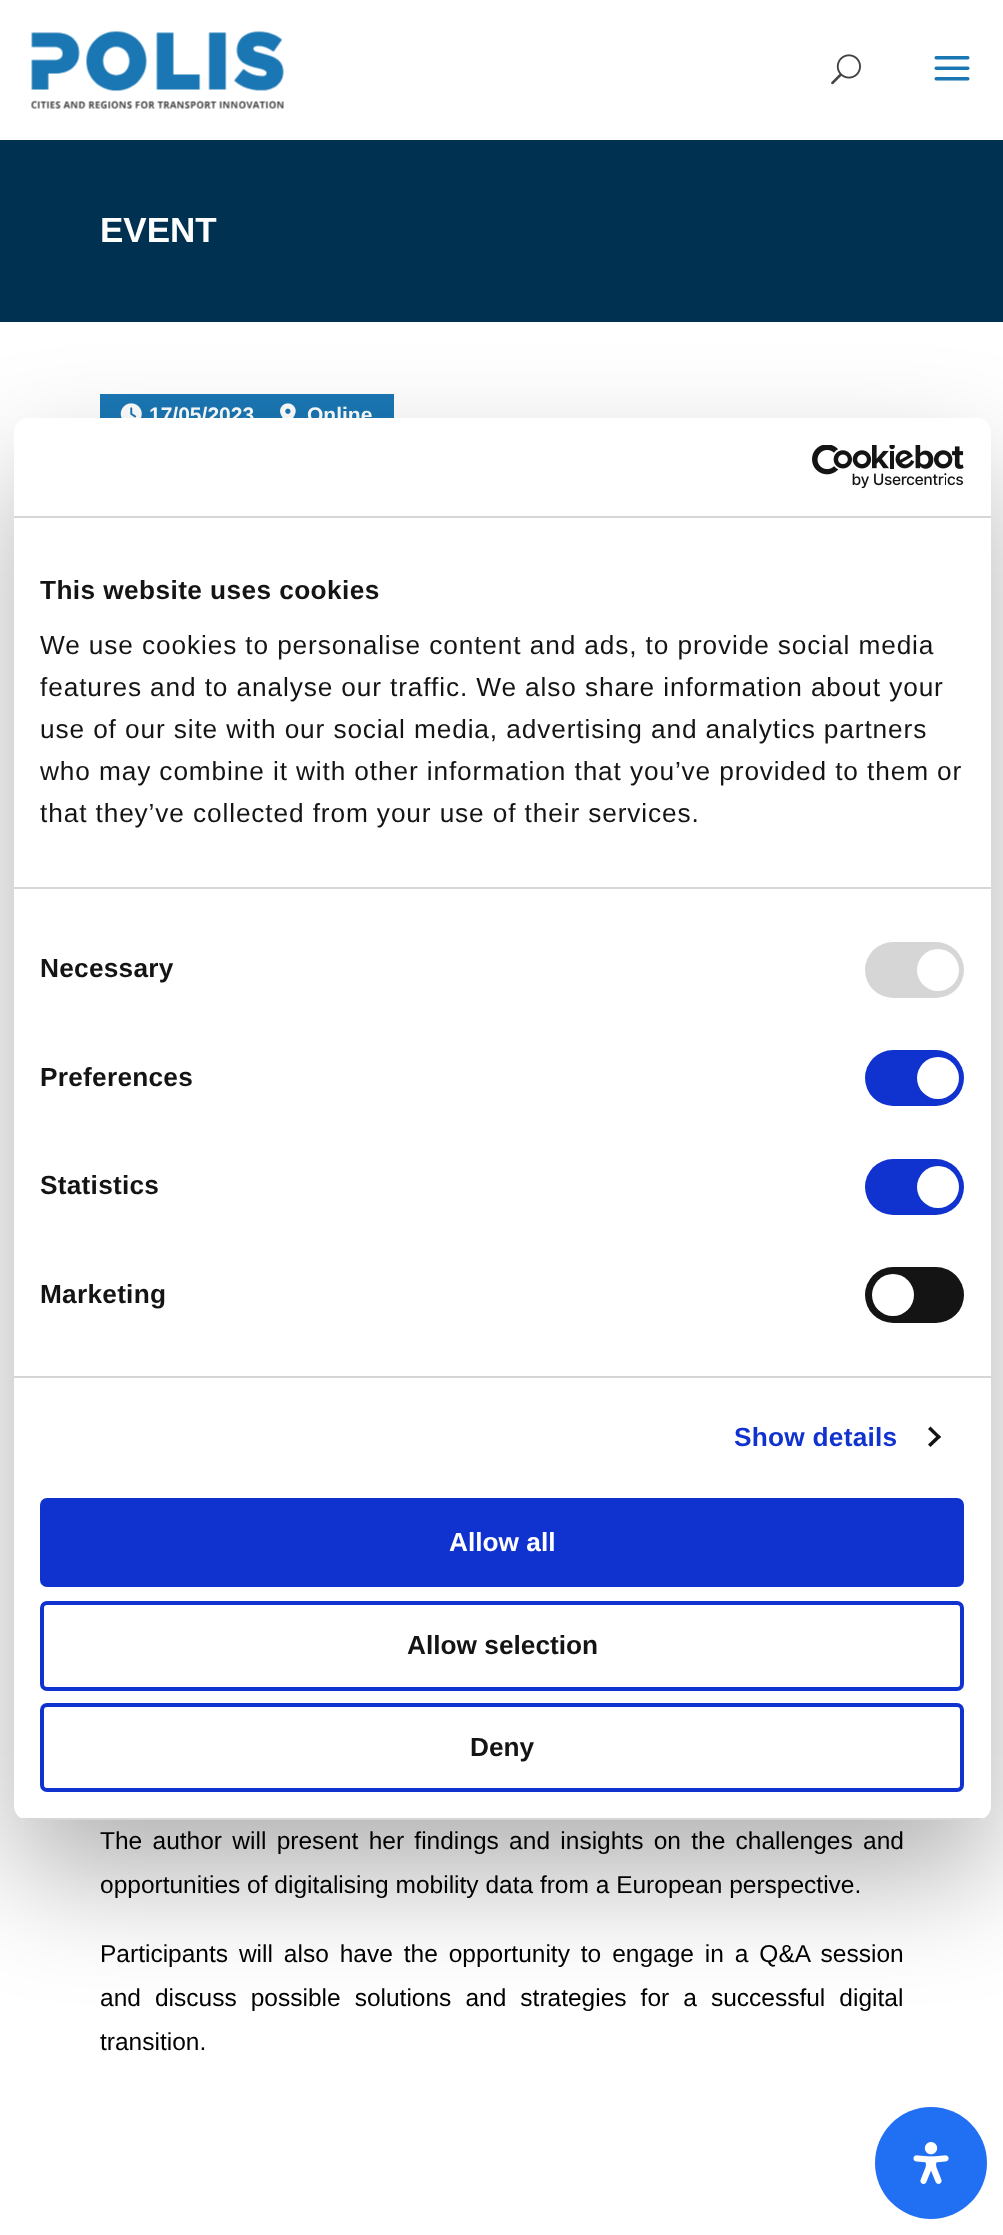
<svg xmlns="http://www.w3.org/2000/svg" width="1003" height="2235">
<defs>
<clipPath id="clip1"><rect x="14" y="418" width="977" height="1402" rx="14"/></clipPath>
</defs>
<rect width="100%" height="100%" fill="#fff"/>
<image x="31" y="31" width="253" height="78" href="media/1.png"/>
<image x="831" y="54" width="30" height="31" href="media/2.png"/>
<image x="934" y="56" width="36" height="25" href="media/3.png"/>
<rect y="140" width="1003" height="182" fill="#003150"/>
<text x="100" y="242" style="font-family:Liberation Sans;font-size:35px;font-weight:bold;fill:#fff">EVENT</text>
<rect x="100" y="394" width="294" height="24" fill="#1a77b4"/>
<image x="120" y="403" width="22" height="15" href="media/4.png"/>
<text x="149" y="422" style="font-family:Liberation Sans;font-size:21px;font-weight:bold;fill:#fff">17/05/2023</text>
<image x="280" y="403" width="16" height="15" href="media/5.png"/>
<text x="307" y="422" style="font-family:Liberation Sans;font-size:21px;font-weight:bold;fill:#fff">Online</text>
<text x="100" y="1849" word-spacing="3.5" style="font-family:Liberation Sans;font-size:24.5px;fill:#000">The author will present her findings and insights on the challenges and</text>
<text x="100" y="1893" style="font-family:Liberation Sans;font-size:24.5px;fill:#000">opportunities of digitalising mobility data from a European perspective.</text>
<text x="100" y="1962" word-spacing="4.1" style="font-family:Liberation Sans;font-size:24.5px;fill:#000">Participants will also have the opportunity to engage in a Q&amp;A session</text>
<text x="100" y="2006" word-spacing="7.25" style="font-family:Liberation Sans;font-size:24.5px;fill:#000">and discuss possible solutions and strategies for a successful digital</text>
<text x="100" y="2050" style="font-family:Liberation Sans;font-size:24.5px;fill:#000">transition.</text>
<rect x="14" y="474" width="977" height="1402" rx="14" fill="#0000004d" filter="blur(59.5px)"/>
<rect x="14" y="418" width="977" height="1402" rx="14" fill="#fff"/>
<rect x="14" y="516" width="977" height="2" fill="#d6d6d6"/>
<image x="812" y="445" width="152" height="44" href="media/6.png"/>
<rect x="14" y="887" width="977" height="2" fill="#d6d6d6"/>
<text x="40" y="599" style="font-family:Liberation Sans;font-size:26.25px;font-weight:bold;letter-spacing:0.4px;fill:#141414">This website uses cookies</text>
<text x="40" y="654" style="font-family:Liberation Sans;font-size:26.25px;letter-spacing:0.88px;fill:#141414">We use cookies to personalise content and ads, to provide social media</text>
<text x="40" y="696" style="font-family:Liberation Sans;font-size:26.25px;letter-spacing:0.88px;fill:#141414">features and to analyse our traffic. We also share information about your</text>
<text x="40" y="738" style="font-family:Liberation Sans;font-size:26.25px;letter-spacing:0.88px;fill:#141414">use of our site with our social media, advertising and analytics partners</text>
<text x="40" y="780" style="font-family:Liberation Sans;font-size:26.25px;letter-spacing:0.88px;fill:#141414">who may combine it with other information that you’ve provided to them or</text>
<text x="40" y="822" style="font-family:Liberation Sans;font-size:26.25px;letter-spacing:0.88px;fill:#141414">that they’ve collected from your use of their services.</text>
<rect x="14" y="1376" width="977" height="2" fill="#d6d6d6"/>
<text x="40" y="977" style="font-family:Liberation Sans;font-size:26.25px;font-weight:bold;letter-spacing:0.25px;fill:#141414">Necessary</text>
<rect x="865" y="942" width="99" height="56" rx="28" fill="#d6d6d6"/>
<circle cx="938" cy="970" r="21" fill="#fff"/>
<text x="40" y="1086" style="font-family:Liberation Sans;font-size:26.25px;font-weight:bold;letter-spacing:0.25px;fill:#141414">Preferences</text>
<rect x="865" y="1050" width="99" height="56" rx="28" fill="#1032cf"/>
<circle cx="938" cy="1078" r="21" fill="#fff"/>
<text x="40" y="1194" style="font-family:Liberation Sans;font-size:26.25px;font-weight:bold;letter-spacing:0.25px;fill:#141414">Statistics</text>
<rect x="865" y="1159" width="99" height="56" rx="28" fill="#1032cf"/>
<circle cx="938" cy="1187" r="21" fill="#fff"/>
<text x="40" y="1303" style="font-family:Liberation Sans;font-size:26.25px;font-weight:bold;letter-spacing:0.25px;fill:#141414">Marketing</text>
<rect x="865" y="1267" width="99" height="56" rx="28" fill="#141414"/>
<circle cx="893" cy="1295" r="21" fill="#fff"/>
<text x="734" y="1446" style="font-family:Liberation Sans;font-size:26.25px;font-weight:bold;letter-spacing:0.25px;fill:#1032cf">Show details</text>
<path d="M930.5 1426.5l10.5 10.5l-2.5 2l-10.5-10z" fill="#141414"/>
<path d="M938.5 1434.5l2.5 2.5l-10.5 10l-2.5-2.5z" fill="#141414"/>
<g clip-path="url(#clip1)">
<rect x="14" y="1818" width="977" height="2" fill="#d6d6d6"/>
</g>
<rect x="42" y="1500" width="920" height="85" rx="5" fill="#1032cf" stroke="#1032cf" stroke-width="4"/>
<text x="449" y="1551" style="font-family:Liberation Sans;font-size:26.25px;font-weight:bold;fill:#fff">Allow all</text>
<rect x="42" y="1603" width="920" height="86" rx="5" fill="none" stroke="#1032cf" stroke-width="4"/>
<text x="407" y="1654" style="font-family:Liberation Sans;font-size:26.25px;font-weight:bold;fill:#141414">Allow selection</text>
<rect x="42" y="1705" width="920" height="85" rx="5" fill="none" stroke="#1032cf" stroke-width="4"/>
<text x="470" y="1756" style="font-family:Liberation Sans;font-size:26.25px;font-weight:bold;fill:#141414">Deny</text>
<circle cx="931" cy="2163" r="56" fill="#216ff3"/>
<image x="913" y="2142" width="36" height="42" href="media/7.png"/>
</svg>
